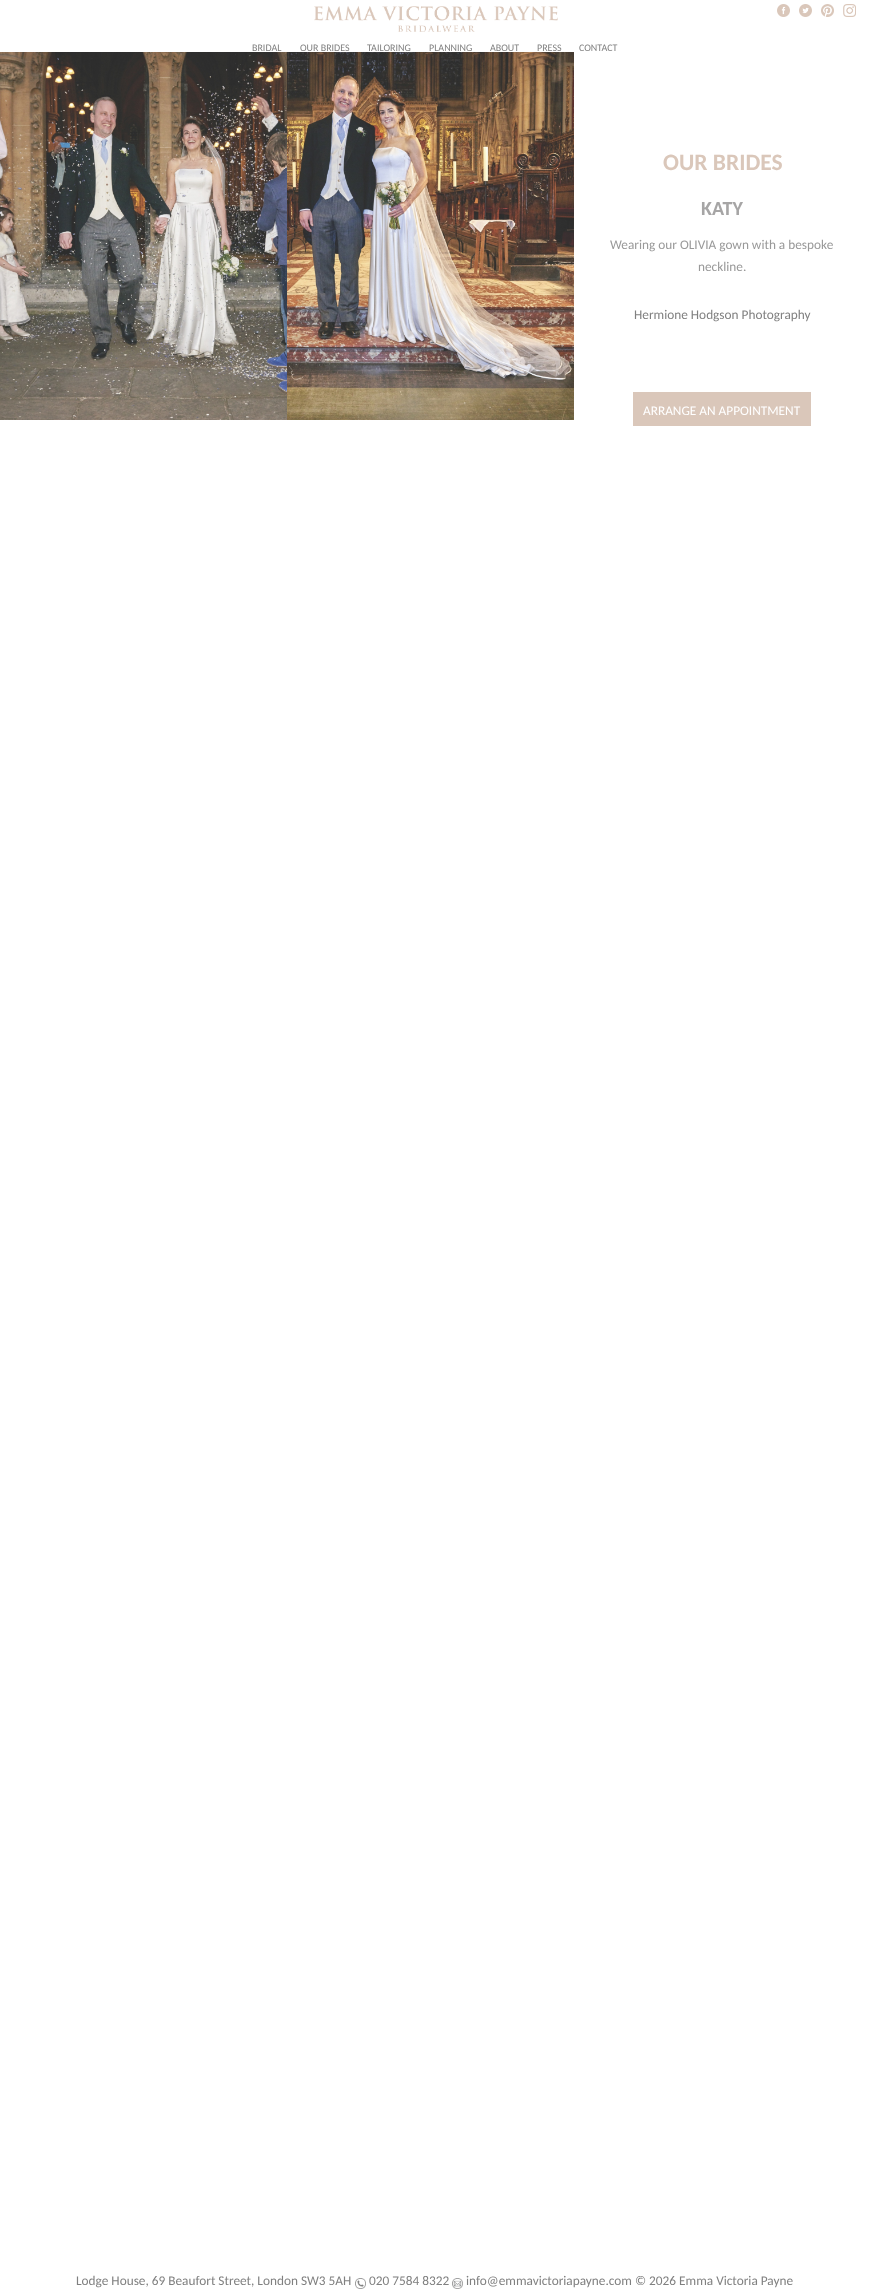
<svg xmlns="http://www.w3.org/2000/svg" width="870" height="2291">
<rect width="100%" height="100%" fill="#fff"/>
<image x="314" y="6" width="244" height="26" href="media/1.png"/>
<image x="777" y="4" width="13" height="13" href="media/2.png"/>
<image x="799" y="4" width="13" height="13" href="media/3.png"/>
<image x="821" y="4" width="13" height="13" href="media/4.png"/>
<image x="843" y="4" width="13" height="13" href="media/5.png"/>
<text x="252" y="51" style="font-family:Carlito;font-size:10px;fill:#808080">BRIDAL</text>
<text x="300" y="51" style="font-family:Carlito;font-size:10px;fill:#808080">OUR BRIDES</text>
<text x="367" y="51" style="font-family:Carlito;font-size:10px;fill:#808080">TAILORING</text>
<text x="429" y="51" style="font-family:Carlito;font-size:10px;fill:#808080">PLANNING</text>
<text x="490" y="51" style="font-family:Carlito;font-size:10px;fill:#808080">ABOUT</text>
<text x="537" y="51" style="font-family:Carlito;font-size:10px;fill:#808080">PRESS</text>
<text x="579" y="51" style="font-family:Carlito;font-size:10px;fill:#808080">CONTACT</text>
<image x="0" y="52" width="287" height="368" href="media/6.png"/>
<image x="287" y="52" width="287" height="368" href="media/7.png"/>
<text x="663" y="170" style="font-family:Carlito;font-size:23.5px;font-weight:bold;fill:#dac7ba">OUR BRIDES</text>
<text x="701" y="215" style="font-family:Carlito;font-size:20px;font-weight:bold;fill:#a6a5a5">KATY</text>
<text x="610" y="249" style="font-family:Carlito;font-size:13.3px;fill:#999">Wearing our OLIVIA gown with a bespoke</text>
<text x="698" y="271" style="font-family:Carlito;font-size:13.3px;fill:#999">neckline.</text>
<text x="634" y="319" style="font-family:Carlito;font-size:13.3px;fill:#808080">Hermione Hodgson Photography</text>
<rect x="633" y="392" width="178" height="34" fill="#dac7ba"/>
<text x="643" y="415" style="font-family:Carlito;font-size:13.3px;fill:#fff">ARRANGE AN APPOINTMENT</text>
<text x="76" y="2285" style="font-family:Carlito;font-size:13.3px;fill:#808080">Lodge House, 69 Beaufort Street, London SW3 5AH</text>
<image x="355" y="2278" width="11" height="11" href="media/8.png"/>
<text x="369" y="2285" style="font-family:Carlito;font-size:13.3px;fill:#808080">020 7584 8322</text>
<image x="452" y="2278" width="11" height="11" href="media/9.png"/>
<text x="466" y="2285" style="font-family:Carlito;font-size:13.3px;fill:#808080">info@emmavictoriapayne.com © 2026 Emma Victoria Payne</text>
</svg>
